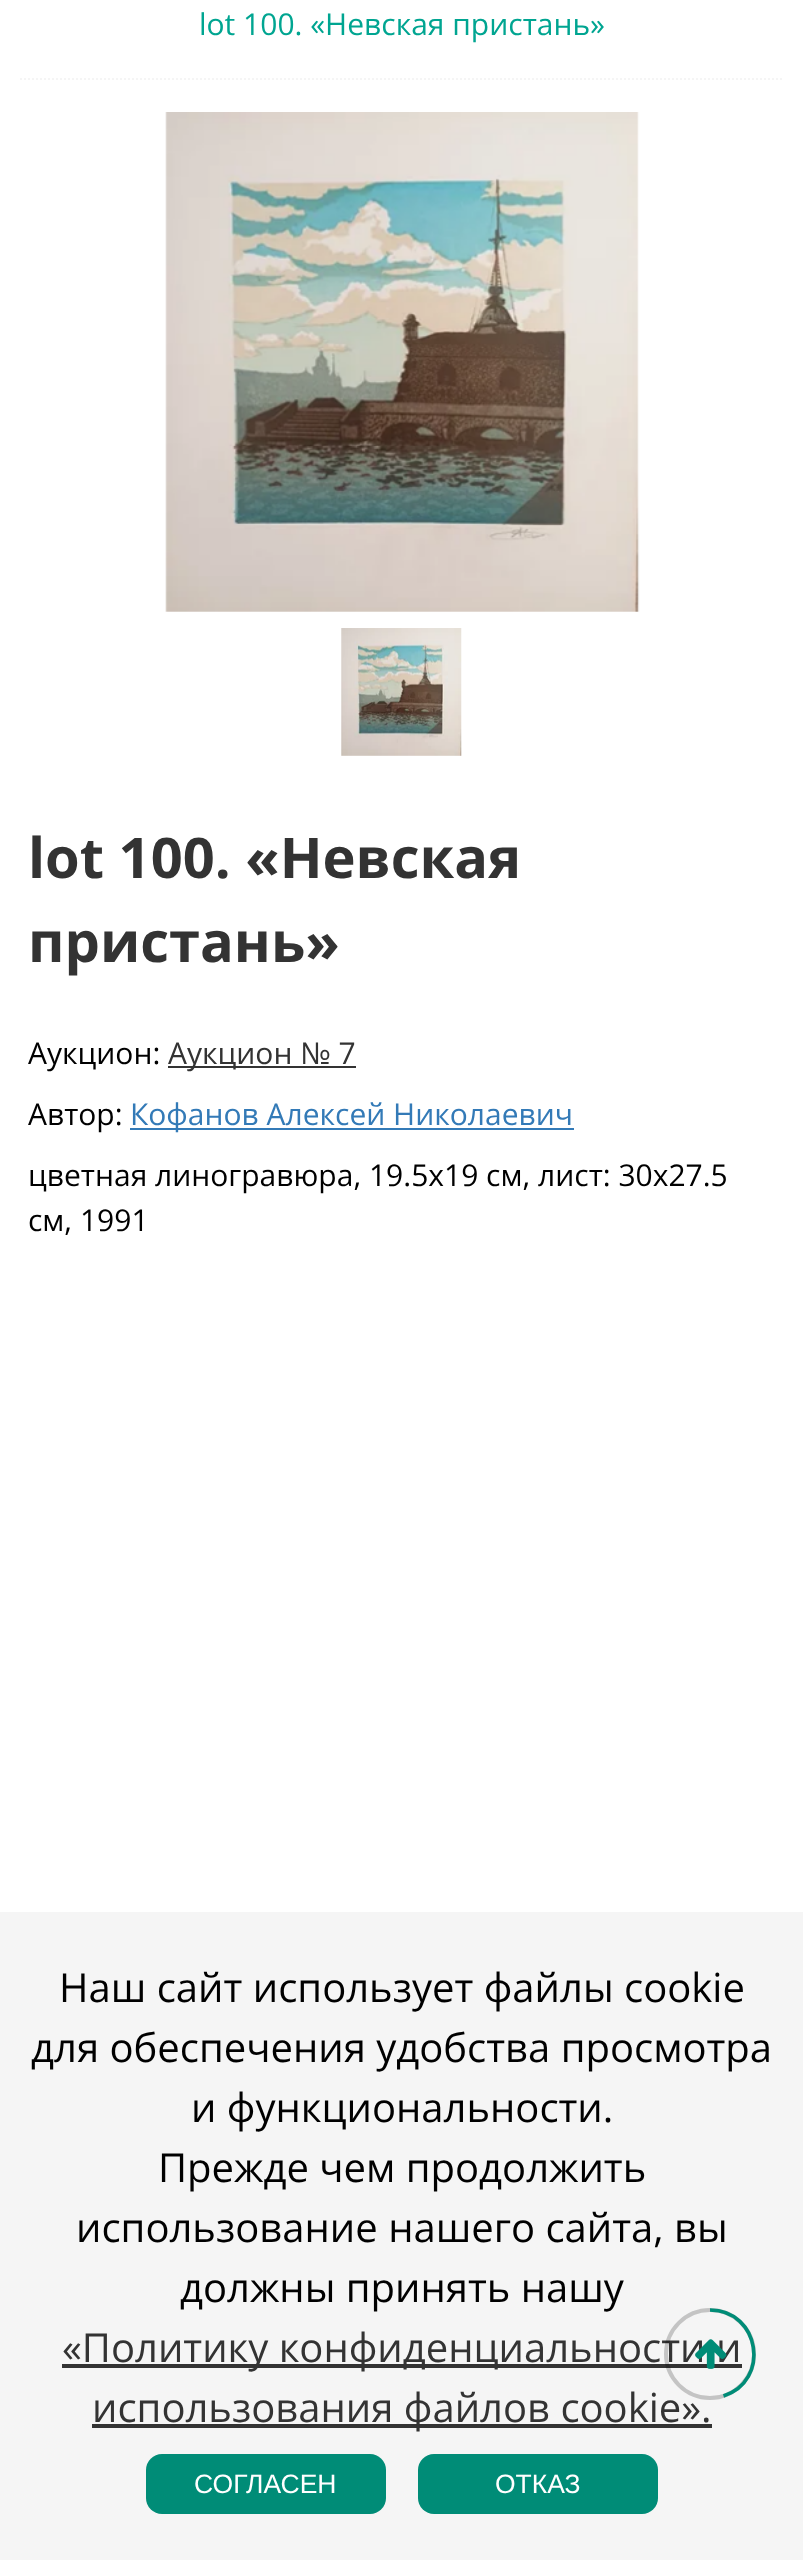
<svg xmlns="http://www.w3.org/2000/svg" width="803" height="2560">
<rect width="100%" height="100%" fill="#fff"/>
<path d="M20 79h764" fill="none" stroke="#f5f5f5" stroke-width="2" stroke-dasharray="2 2"/>
<text x="199" y="35" style="font-family:Open Sans;font-size:30px;fill:#00a591">lot 100. «Невская пристань»</text>
<image x="165" y="112" width="475" height="500" href="media/1.png"/>
<image x="341" y="628" width="121" height="128" href="media/2.png"/>
<text x="28" y="878" style="font-family:Open Sans;font-size:56px;font-weight:bold;fill:#333">lot 100. «Невская</text>
<text x="28" y="962" style="font-family:Open Sans;font-size:56px;font-weight:bold;fill:#333">пристань»</text>
<text x="28" y="1064" style="font-family:Open Sans;font-size:30px;fill:#000">Аукцион:</text>
<rect x="168" y="1066" width="188" height="2" fill="#333"/>
<text x="168" y="1064" style="font-family:Open Sans;font-size:30px;fill:#333">Аукцион № 7</text>
<text x="28" y="1125" style="font-family:Open Sans;font-size:30px;fill:#000">Автор:</text>
<rect x="130" y="1128" width="444" height="2" fill="#337ab7"/>
<text x="130" y="1125" style="font-family:Open Sans;font-size:30px;fill:#337ab7">Кофанов Алексей Николаевич</text>
<text x="28" y="1186" style="font-family:Open Sans;font-size:30px;fill:#000">цветная линогравюра, 19.5х19 см, лист: 30х27.5</text>
<text x="28" y="1231" style="font-family:Open Sans;font-size:30px;fill:#000">см, 1991</text>
<rect y="1912" width="803" height="648" fill="#f5f5f5"/>
<text x="59" y="2002" style="font-family:Open Sans;font-size:40px;fill:#000">Наш сайт использует файлы cookie</text>
<text x="31" y="2062" style="font-family:Open Sans;font-size:40px;fill:#000">для обеспечения удобства просмотра</text>
<text x="191" y="2122" style="font-family:Open Sans;font-size:40px;fill:#000">и функциональности.</text>
<text x="158" y="2182" style="font-family:Open Sans;font-size:40px;fill:#000">Прежде чем продолжить</text>
<text x="76" y="2242" style="font-family:Open Sans;font-size:40px;fill:#000">использование нашего сайта, вы</text>
<text x="180" y="2302" style="font-family:Open Sans;font-size:40px;fill:#000">должны принять нашу</text>
<rect x="62" y="2364" width="680" height="4" fill="#333"/>
<text x="62" y="2362" style="font-family:Open Sans;font-size:40px;fill:#333">«Политику конфиденциальности и</text>
<rect x="92" y="2424" width="620" height="4" fill="#333"/>
<text x="92" y="2422" style="font-family:Open Sans;font-size:40px;fill:#333">использования файлов cookie».</text>
<rect x="146" y="2454" width="240" height="60" rx="16" fill="#008c77"/>
<text x="194" y="2493" style="font-family:Liberation Sans;font-size:26.5px;fill:#fff">СОГЛАСЕН</text>
<rect x="418" y="2454" width="240" height="60" rx="16" fill="#008c77"/>
<text x="495" y="2493" style="font-family:Liberation Sans;font-size:26.5px;fill:#fff">ОТКАЗ</text>
<circle cx="710" cy="2354" r="44" fill="none" stroke="#00000033" stroke-width="4"/>
<path d="M710 2310c50 0 61 71 13.5 86" fill="none" stroke="#008c77" stroke-width="3.6"/>
<image x="695" y="2339" width="32" height="30" href="media/3.png"/>
</svg>
